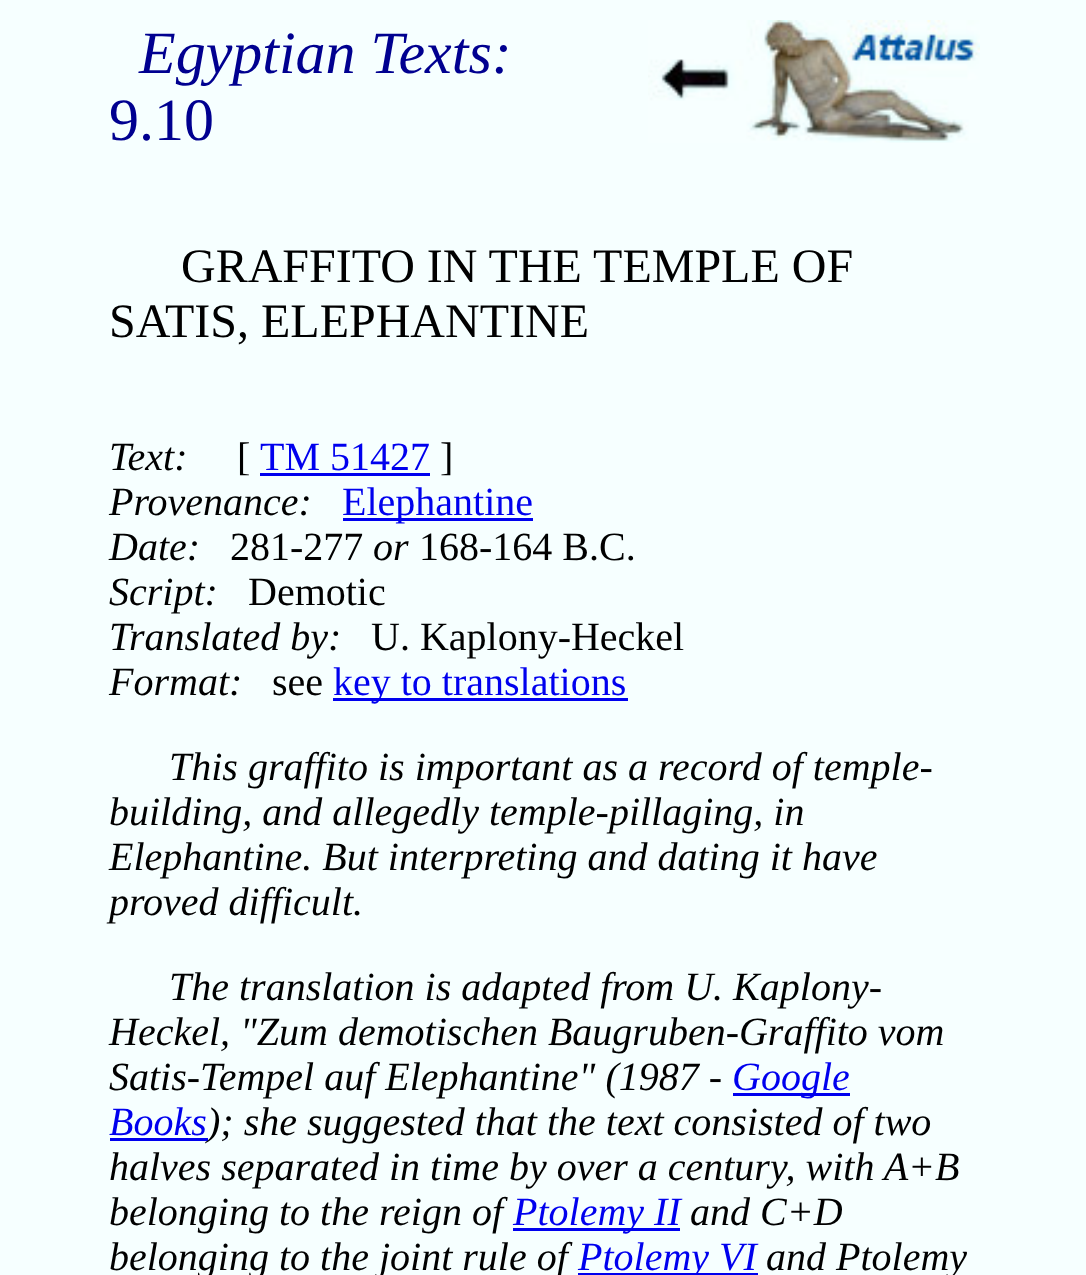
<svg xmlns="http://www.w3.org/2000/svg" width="1086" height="1275">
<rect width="100%" height="100%" fill="#f6ffff"/>
<text x="139" y="73" style="font-family:Liberation Serif;font-size:60px;font-style:italic;fill:#000090">Egyptian Texts:</text>
<text x="109" y="140" style="font-family:Liberation Serif;font-size:60px;fill:#000090">9.10</text>
<image x="648" y="20" width="332" height="123" href="media/1.png"/>
<text x="181" y="282" style="font-family:Liberation Serif;font-size:48px;fill:#000">GRAFFITO IN THE TEMPLE OF</text>
<text x="109" y="337" style="font-family:Liberation Serif;font-size:48px;fill:#000">SATIS, ELEPHANTINE</text>
<text x="109" y="470" style="font-family:Liberation Serif;font-size:40px;font-style:italic;fill:#000">Text:</text>
<text x="237" y="470" style="font-family:Liberation Serif;font-size:40px;fill:#000">[</text>
<text x="260" y="470" style="font-family:Liberation Serif;font-size:40px;fill:#00e">TM 51427</text>
<rect x="260" y="473" width="170" height="3" fill="#00e"/>
<text x="440" y="470" style="font-family:Liberation Serif;font-size:40px;fill:#000">]</text>
<text x="109" y="515" style="font-family:Liberation Serif;font-size:40px;font-style:italic;fill:#000">Provenance:</text>
<rect x="343" y="518" width="190" height="3" fill="#00e"/>
<text x="342" y="515" style="font-family:Liberation Serif;font-size:40px;fill:#00e">Elephantine</text>
<text x="109" y="560" style="font-family:Liberation Serif;font-size:40px;font-style:italic;fill:#000">Date:</text>
<text x="230" y="560" style="font-family:Liberation Serif;font-size:40px;fill:#000">281-277</text>
<text x="373" y="560" style="font-family:Liberation Serif;font-size:40px;font-style:italic;fill:#000">or</text>
<text x="419" y="560" style="font-family:Liberation Serif;font-size:40px;fill:#000">168-164 B.C.</text>
<text x="109" y="605" style="font-family:Liberation Serif;font-size:40px;font-style:italic;fill:#000">Script:</text>
<text x="248" y="605" style="font-family:Liberation Serif;font-size:40px;fill:#000">Demotic</text>
<text x="109" y="650" style="font-family:Liberation Serif;font-size:40px;font-style:italic;fill:#000">Translated by:</text>
<text x="371" y="650" style="font-family:Liberation Serif;font-size:40px;fill:#000">U. Kaplony-Heckel</text>
<text x="109" y="695" style="font-family:Liberation Serif;font-size:40px;font-style:italic;fill:#000">Format:</text>
<text x="272" y="695" style="font-family:Liberation Serif;font-size:40px;fill:#000">see</text>
<rect x="333" y="698" width="295" height="3" fill="#00e"/>
<text x="333" y="695" style="font-family:Liberation Serif;font-size:40px;fill:#00e">key to translations</text>
<text x="169" y="780" style="font-family:Liberation Serif;font-size:40px;font-style:italic;fill:#000">This graffito is important as a record of temple-</text>
<text x="109" y="825" style="font-family:Liberation Serif;font-size:40px;font-style:italic;fill:#000">building, and allegedly temple-pillaging, in</text>
<text x="109" y="870" style="font-family:Liberation Serif;font-size:40px;font-style:italic;fill:#000">Elephantine. But interpreting and dating it have</text>
<text x="109" y="915" style="font-family:Liberation Serif;font-size:40px;font-style:italic;fill:#000">proved difficult.</text>
<text x="169" y="1000" style="font-family:Liberation Serif;font-size:40px;font-style:italic;fill:#000">The translation is adapted from U. Kaplony-</text>
<text x="109" y="1045" style="font-family:Liberation Serif;font-size:40px;font-style:italic;fill:#000">Heckel, "Zum demotischen Baugruben-Graffito vom</text>
<text x="109" y="1090" style="font-family:Liberation Serif;font-size:40px;font-style:italic;fill:#000">Satis-Tempel auf Elephantine" (1987 -</text>
<rect x="733" y="1093" width="117" height="3" fill="#00e"/>
<text x="732" y="1090" style="font-family:Liberation Serif;font-size:40px;font-style:italic;fill:#00e">Google</text>
<text x="109" y="1135" style="font-family:Liberation Serif;font-size:40px;font-style:italic;fill:#00e">Books</text>
<rect x="110" y="1138" width="98" height="3" fill="#00e"/>
<text x="207" y="1135" style="font-family:Liberation Serif;font-size:40px;font-style:italic;fill:#000">); she suggested that the text consisted of two</text>
<text x="109" y="1180" style="font-family:Liberation Serif;font-size:40px;font-style:italic;fill:#000">halves separated in time by over a century, with A+B</text>
<text x="109" y="1225" style="font-family:Liberation Serif;font-size:40px;font-style:italic;fill:#000">belonging to the reign of</text>
<rect x="513" y="1228" width="167" height="3" fill="#00e"/>
<text x="513" y="1225" style="font-family:Liberation Serif;font-size:40px;font-style:italic;fill:#00e">Ptolemy II</text>
<text x="690" y="1225" style="font-family:Liberation Serif;font-size:40px;font-style:italic;fill:#000">and C+D</text>
<text x="109" y="1270" style="font-family:Liberation Serif;font-size:40px;font-style:italic;fill:#000">belonging to the joint rule of</text>
<rect x="578" y="1273" width="180" height="2" fill="#00e"/>
<text x="578" y="1270" style="font-family:Liberation Serif;font-size:40px;font-style:italic;fill:#00e">Ptolemy VI</text>
<text x="766" y="1270" style="font-family:Liberation Serif;font-size:40px;font-style:italic;fill:#000">and Ptolemy</text>
</svg>
